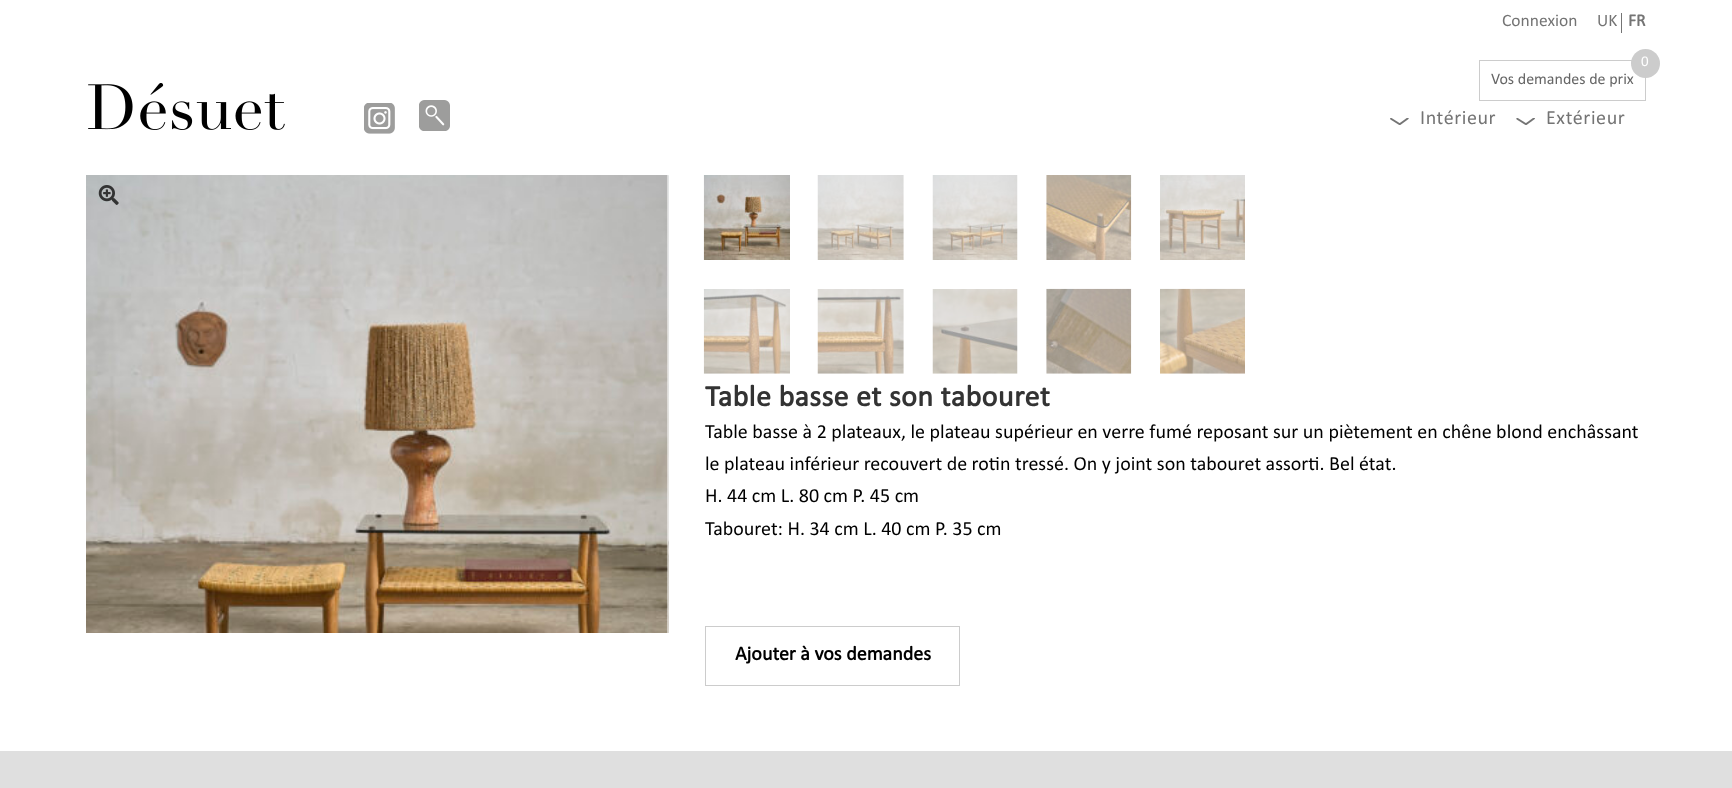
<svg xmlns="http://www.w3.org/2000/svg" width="1732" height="788">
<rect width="100%" height="100%" fill="#fff"/>
<text x="1502" y="26" style="font-family:Calibri;font-size:17.5px;fill:#747474">Connexion</text>
<text x="1597" y="26" style="font-family:Calibri;font-size:17.5px;fill:#747474">UK</text>
<rect x="1621" y="13" width="1" height="20" fill="#747474"/>
<text x="1628" y="26" style="font-family:Calibri;font-size:17.5px;font-weight:bold;fill:#747474">FR</text>
<image x="88" y="83" width="197" height="47" href="media/1.png"/>
<rect x="1479.5" y="60.5" width="166" height="40" fill="none" stroke="#ccc"/>
<text x="1491" y="84" style="font-family:Calibri;font-size:16px;fill:#666">Vos demandes de prix</text>
<circle cx="1645.5" cy="63.5" r="14.5" fill="#ccc"/>
<text x="1641" y="66" style="font-family:Calibri;font-size:15px;fill:#fff">0</text>
<image x="364" y="103" width="31" height="31" href="media/2.png"/>
<image x="419" y="100" width="31" height="31" href="media/3.png"/>
<image x="1390" y="118" width="19" height="7" href="media/4.png"/>
<text x="1420" y="124" style="font-family:Calibri;font-size:20px;letter-spacing:0.6px;fill:#747474">Intérieur</text>
<image x="1516" y="118" width="19" height="7" href="media/5.png"/>
<text x="1546" y="124" style="font-family:Calibri;font-size:20px;letter-spacing:0.6px;fill:#747474">Extérieur</text>
<image x="86" y="175" width="582" height="458" href="media/6.png"/>
<image x="668" y="175" width="1" height="458" href="media/7.png"/>
<image x="703" y="175" width="87" height="85" href="media/8.png"/>
<image x="817" y="175" width="87" height="85" href="media/9.png"/>
<image x="932" y="175" width="86" height="85" href="media/10.png"/>
<image x="1046" y="175" width="86" height="85" href="media/11.png"/>
<image x="1160" y="175" width="85" height="85" href="media/12.png"/>
<image x="703" y="289" width="87" height="85" href="media/13.png"/>
<image x="817" y="289" width="87" height="85" href="media/14.png"/>
<image x="932" y="289" width="86" height="85" href="media/15.png"/>
<image x="1046" y="288" width="86" height="86" href="media/16.png"/>
<image x="1160" y="288" width="85" height="86" href="media/17.png"/>
<image x="98" y="185" width="21" height="20" href="media/18.png"/>
<text x="705" y="406" style="font-family:Calibri;font-size:30px;font-weight:bold;letter-spacing:0.4px;fill:#333">Table basse et son tabouret</text>
<text x="705" y="438" style="font-family:Calibri;font-size:20px;fill:#000">Table basse à 2 plateaux, le plateau supérieur en verre fumé reposant sur un piètement en chêne blond enchâssant</text>
<text x="705" y="470" style="font-family:Calibri;font-size:20px;fill:#000">le plateau inférieur recouvert de rotin tressé. On y joint son tabouret assorti. Bel état.</text>
<text x="705" y="502" style="font-family:Calibri;font-size:20px;fill:#000">H. 44 cm L. 80 cm P. 45 cm</text>
<text x="705" y="535" style="font-family:Calibri;font-size:20px;fill:#000">Tabouret: H. 34 cm L. 40 cm P. 35 cm</text>
<rect x="705.5" y="626.5" width="254" height="59" fill="none" stroke="#ccc"/>
<text x="735" y="660" style="font-family:Calibri;font-size:20px;font-weight:bold;fill:#000">Ajouter à vos demandes</text>
<rect y="751" width="1732" height="37" fill="#dfdfdf"/>
</svg>
